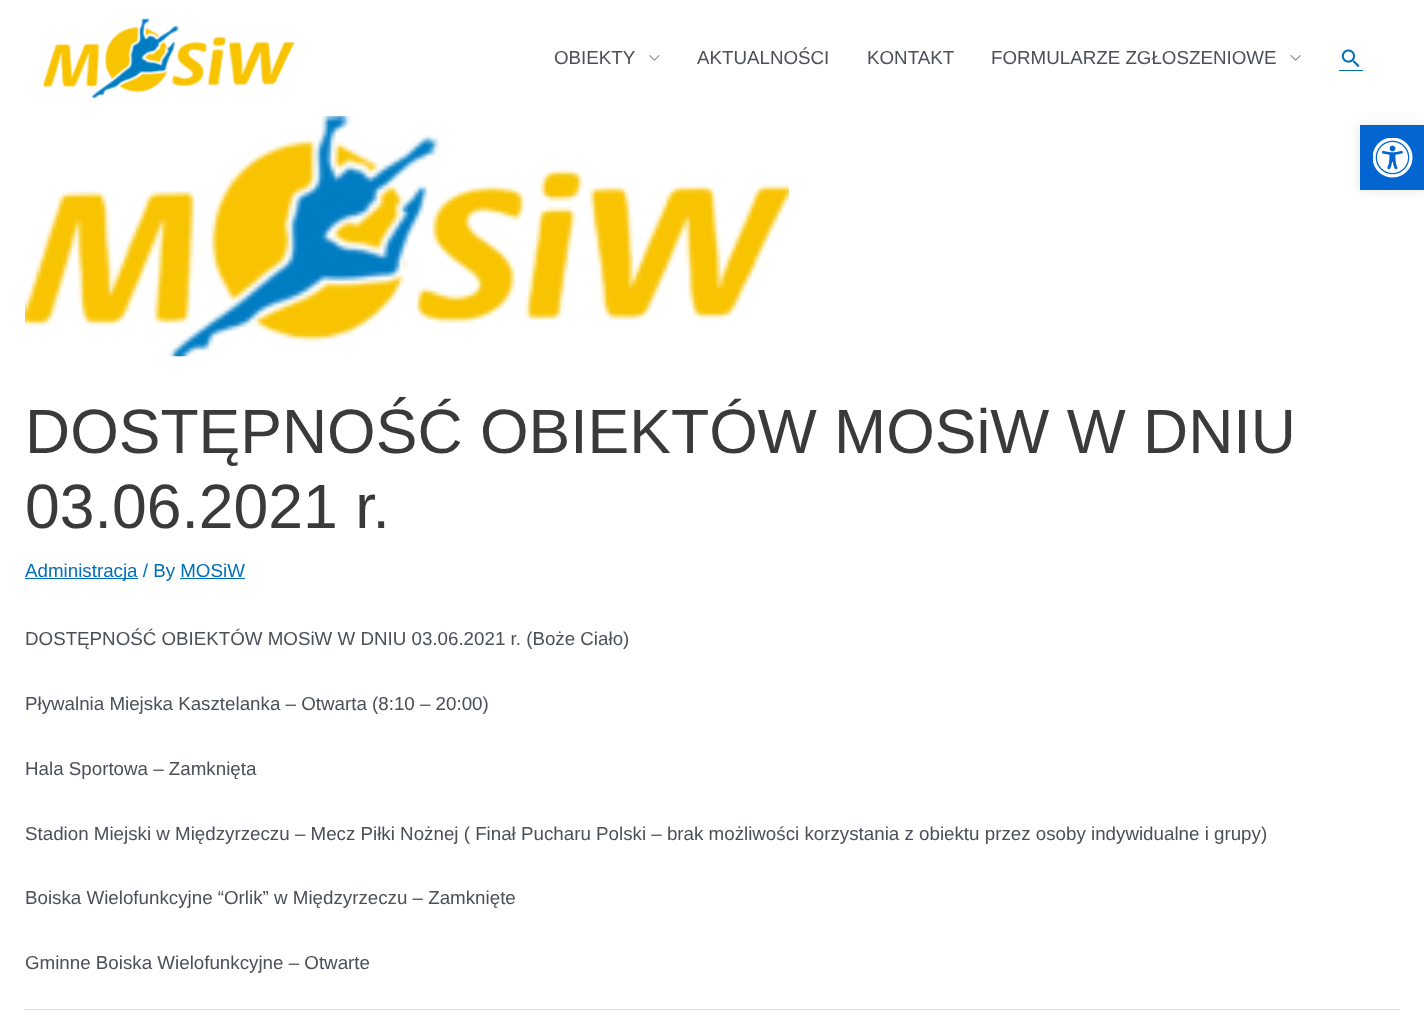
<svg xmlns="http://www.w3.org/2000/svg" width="1424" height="1019">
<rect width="100%" height="100%" fill="#fff"/>
<image x="43" y="18" width="251" height="80" href="media/1.png"/>
<text x="554" y="64" style="font-family:Liberation Sans;font-size:18.75px;fill:#4b4f58">OBIEKTY</text>
<image x="649" y="55" width="11" height="6" href="media/2.png"/>
<text x="697" y="64" style="font-family:Liberation Sans;font-size:18.75px;fill:#4b4f58">AKTUALNOŚCI</text>
<text x="867" y="64" style="font-family:Liberation Sans;font-size:18.75px;fill:#4b4f58">KONTAKT</text>
<text x="991" y="64" style="font-family:Liberation Sans;font-size:18.75px;fill:#4b4f58">FORMULARZE ZGŁOSZENIOWE</text>
<image x="1290" y="55" width="11" height="6" href="media/3.png"/>
<rect x="1339" y="70" width="24" height="1" fill="#0170b9"/>
<image x="1341" y="49" width="19" height="19" href="media/4.png"/>
<image x="25" y="116" width="764" height="241" href="media/5.png"/>
<text x="25" y="453" style="font-family:Liberation Sans;font-size:62.5px;fill:#3a3a3a">DOSTĘPNOŚĆ OBIEKTÓW MOSiW W DNIU</text>
<text x="25" y="528" style="font-family:Liberation Sans;font-size:62.5px;fill:#3a3a3a">03.06.2021 r.</text>
<rect x="25" y="578" width="113" height="1" fill="#0170b9"/>
<text x="25" y="577" style="font-family:Liberation Sans;font-size:18.75px;fill:#0170b9">Administracja / By MOSiW</text>
<rect x="180" y="578" width="65" height="1" fill="#0170b9"/>
<text x="25" y="645" style="font-family:Liberation Sans;font-size:18.75px;fill:#4b4f58">DOSTĘPNOŚĆ OBIEKTÓW MOSiW W DNIU 03.06.2021 r. (Boże Ciało)</text>
<text x="25" y="710" style="font-family:Liberation Sans;font-size:18.75px;fill:#4b4f58">Pływalnia Miejska Kasztelanka – Otwarta (8:10 – 20:00)</text>
<text x="25" y="775" style="font-family:Liberation Sans;font-size:18.75px;fill:#4b4f58">Hala Sportowa – Zamknięta</text>
<text x="25" y="840" style="font-family:Liberation Sans;font-size:18.75px;fill:#4b4f58">Stadion Miejski w Międzyrzeczu – Mecz Piłki Nożnej ( Finał Pucharu Polski – brak możliwości korzystania z obiektu przez osoby indywidualne i grupy)</text>
<text x="25" y="904" style="font-family:Liberation Sans;font-size:18.75px;fill:#4b4f58">Boiska Wielofunkcyjne “Orlik” w Międzyrzeczu – Zamknięte</text>
<text x="25" y="969" style="font-family:Liberation Sans;font-size:18.75px;fill:#4b4f58">Gminne Boiska Wielofunkcyjne – Otwarte</text>
<rect x="25" y="1009" width="1375" height="1" fill="#ddd"/>
<rect x="1360" y="125" width="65" height="65" fill="#0000001a" filter="blur(6px)"/>
<rect x="1360" y="125" width="64" height="65" fill="#0366d0"/>
<image x="1373" y="138" width="40" height="40" href="media/6.png"/>
</svg>
